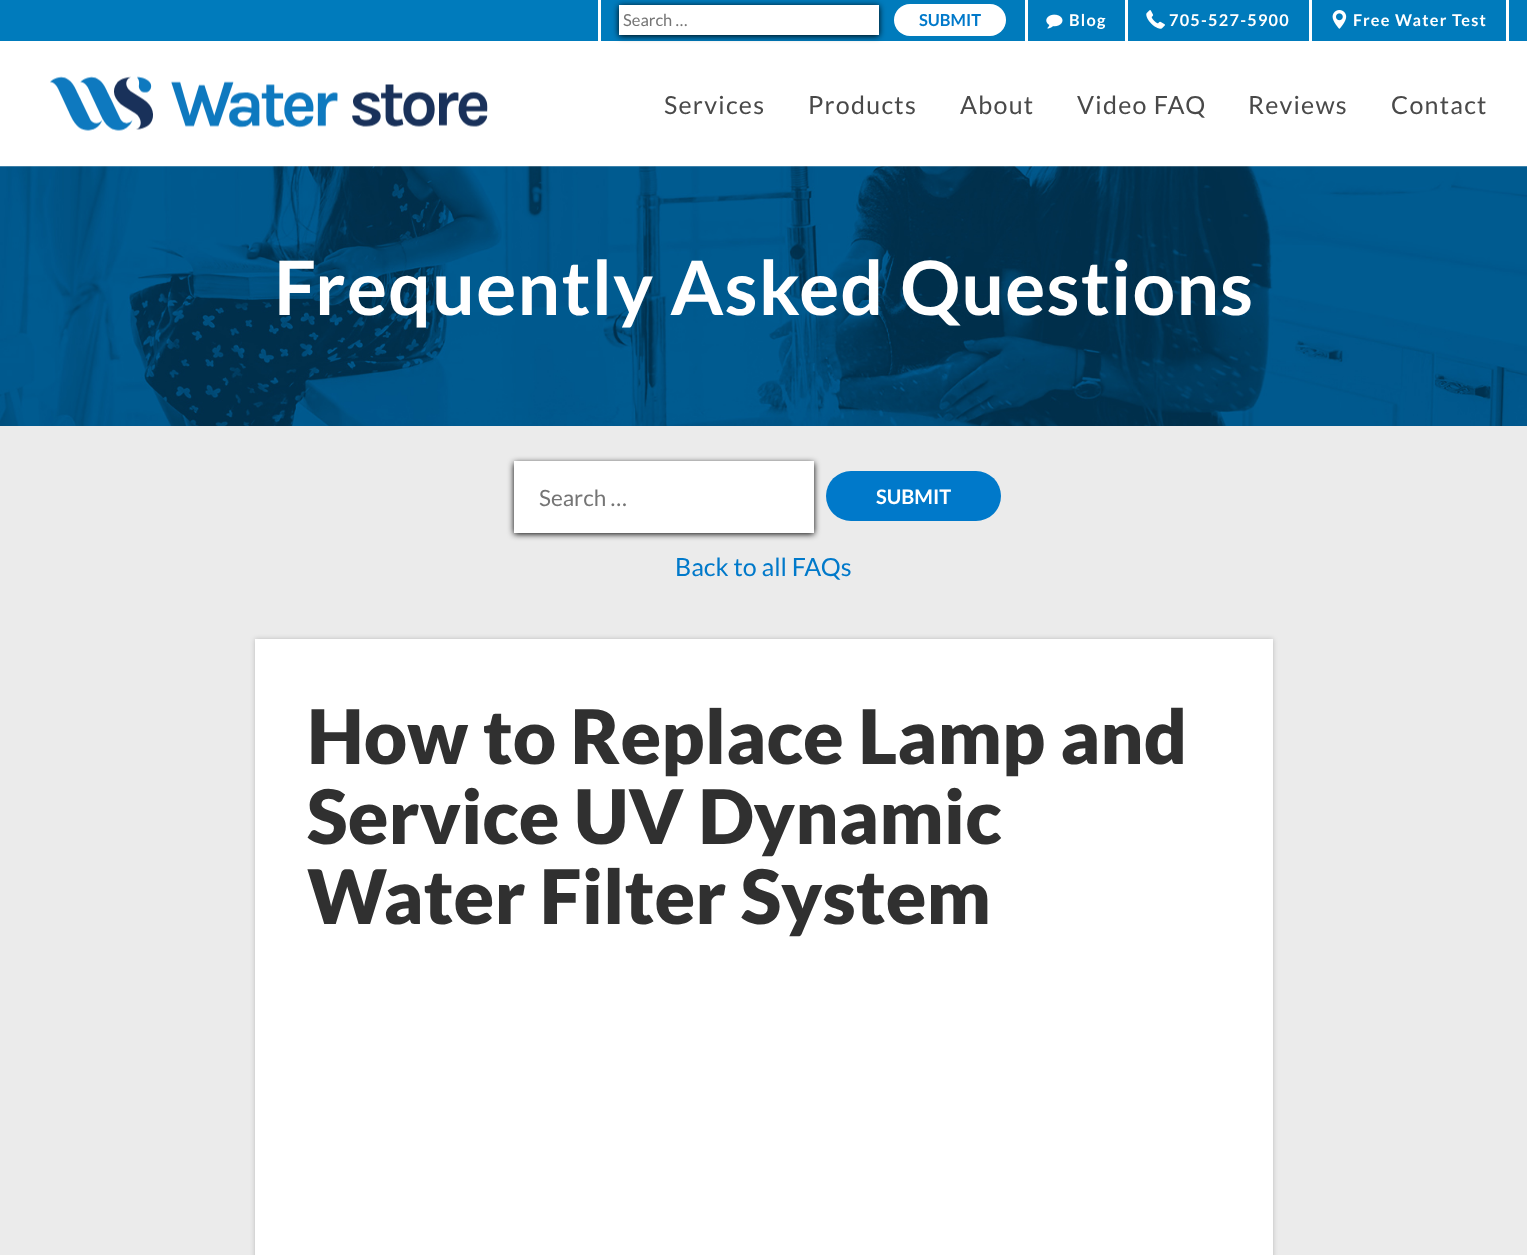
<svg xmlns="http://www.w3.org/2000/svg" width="1527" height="1255">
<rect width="100%" height="100%" fill="#fff"/>
<rect width="1527" height="41" fill="#007bbc"/>
<rect x="1025" width="3" height="41" fill="#fff"/>
<rect x="598" width="3" height="41" fill="#fff"/>
<rect x="619" y="6" width="260" height="30" fill="#000" filter="blur(3px)"/>
<rect x="619" y="5" width="260" height="30" fill="#fff"/>
<text x="623" y="26" style="font-family:Lato;font-size:16.5px;fill:#757575">Search …</text>
<rect x="894" y="4" width="112" height="32" rx="16" fill="#fff"/>
<text x="919" y="26" style="font-family:Lato;font-size:16.5px;font-weight:bold;fill:#0079ca">SUBMIT</text>
<rect x="1125" width="3" height="41" fill="#fff"/>
<image x="1046" y="14" width="17" height="15" href="media/1.png"/>
<text x="1069" y="26" style="font-family:Lato;font-size:16.25px;font-weight:bold;letter-spacing:1.25px;fill:#fff">Blog</text>
<rect x="1309" width="3" height="41" fill="#fff"/>
<image x="1146" y="10" width="19" height="19" href="media/2.png"/>
<text x="1169" y="26" style="font-family:Lato;font-size:16.25px;font-weight:bold;letter-spacing:1.25px;fill:#fff">705-527-5900</text>
<rect x="1506" width="3" height="41" fill="#fff"/>
<image x="1332" y="10" width="15" height="19" href="media/3.png"/>
<text x="1353" y="26" style="font-family:Lato;font-size:16.25px;font-weight:bold;letter-spacing:1.25px;fill:#fff">Free Water Test</text>
<image x="50" y="76" width="438" height="55" href="media/4.png"/>
<text x="664" y="114" style="font-family:Lato;font-size:25px;letter-spacing:1.25px;fill:#494949">Services</text>
<text x="808" y="114" style="font-family:Lato;font-size:25px;letter-spacing:1.25px;fill:#494949">Products</text>
<text x="960" y="114" style="font-family:Lato;font-size:25px;letter-spacing:1.25px;fill:#494949">About</text>
<text x="1077" y="114" style="font-family:Lato;font-size:25px;letter-spacing:1.25px;fill:#494949">Video FAQ</text>
<text x="1248" y="114" style="font-family:Lato;font-size:25px;letter-spacing:1.25px;fill:#494949">Reviews</text>
<text x="1391" y="114" style="font-family:Lato;font-size:25px;letter-spacing:1.25px;fill:#494949">Contact</text>
<image x="0" y="166" width="1527" height="260" href="media/5.png"/>
<text x="274" y="315" style="font-family:Lato;font-size:75px;font-weight:bold;letter-spacing:1.25px;fill:#fff">Frequently Asked Questions</text>
<rect y="426" width="1527" height="829" fill="#ebebeb"/>
<rect x="514" y="463" width="300" height="71" fill="#000" filter="blur(3px)"/>
<rect x="514" y="461" width="300" height="72" fill="#fff"/>
<text x="539" y="506" style="font-family:Lato;font-size:22.5px;fill:#757575">Search …</text>
<rect x="826" y="471" width="175" height="50" rx="25" fill="#0079ca"/>
<text x="876" y="504" style="font-family:Lato;font-size:20px;font-weight:bold;fill:#fff">SUBMIT</text>
<text x="675" y="576" style="font-family:Lato;font-size:25px;fill:#0079ca">Back to all FAQs</text>
<rect x="255" y="639" width="1018" height="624" fill="#00000033" filter="blur(2.5px)"/>
<rect x="255" y="639" width="1018" height="616" fill="#fff"/>
<text x="307" y="764" style="font-family:Lato;font-size:75px;font-weight:900;fill:#303030">How to Replace Lamp and</text>
<text x="307" y="844" style="font-family:Lato;font-size:75px;font-weight:900;fill:#303030">Service UV Dynamic</text>
<text x="307" y="924" style="font-family:Lato;font-size:75px;font-weight:900;fill:#303030">Water Filter System</text>
</svg>
